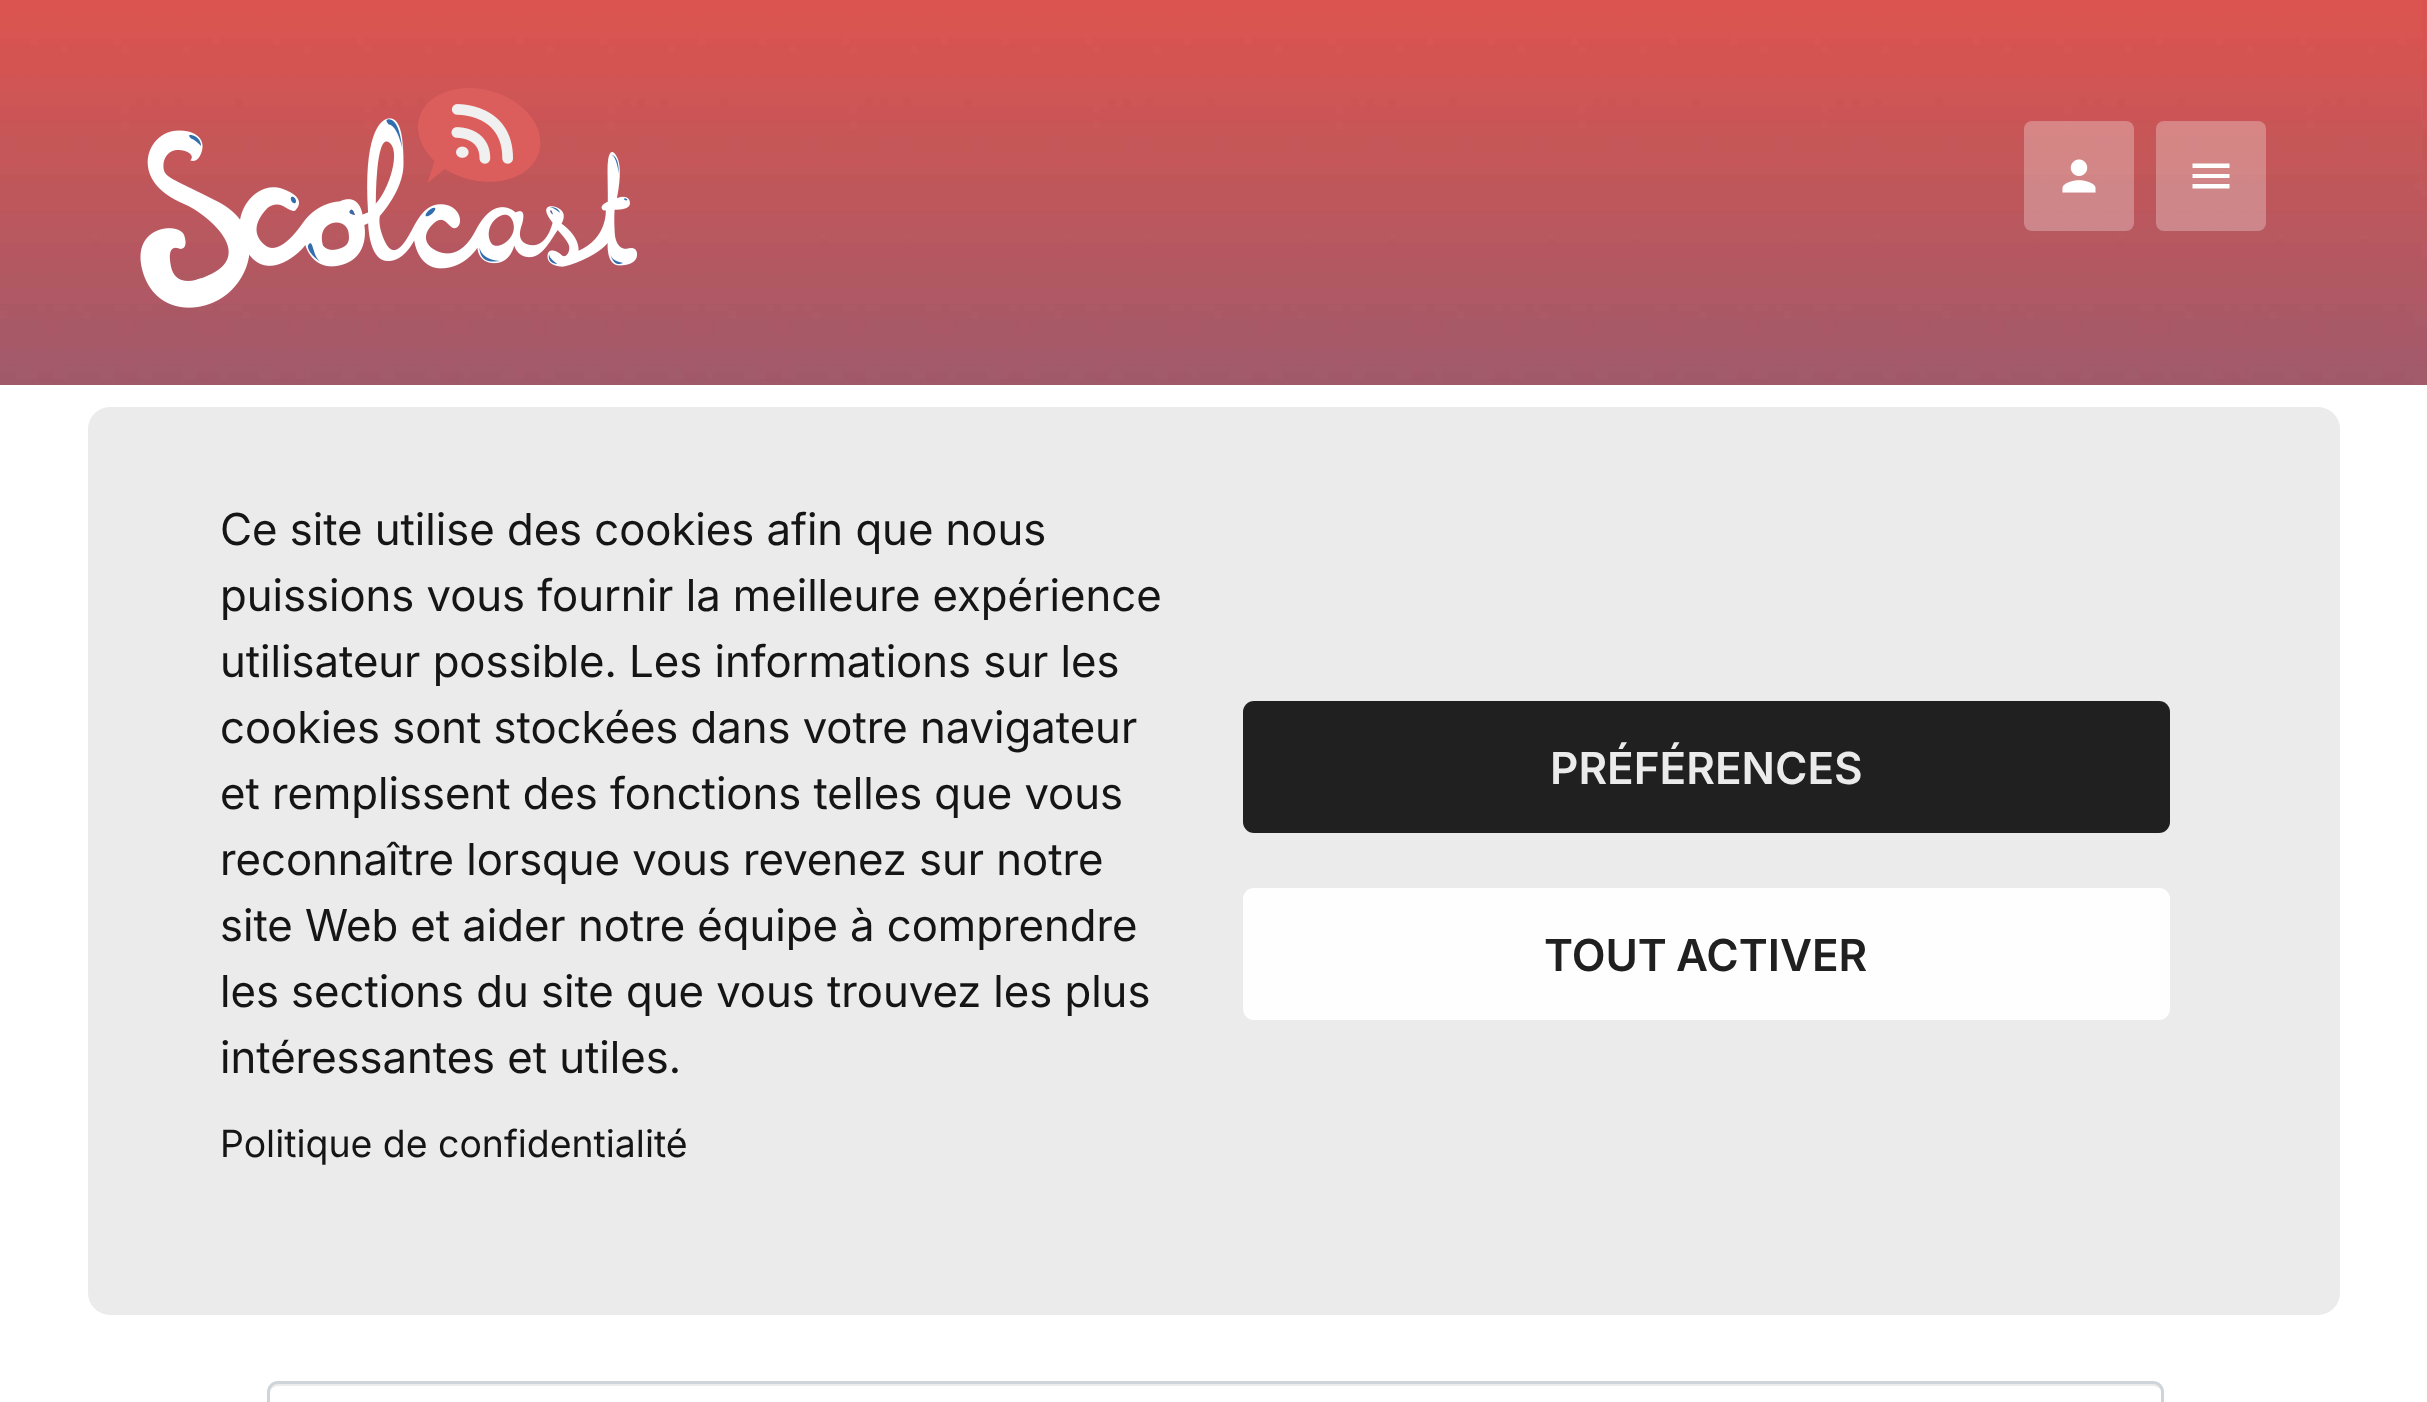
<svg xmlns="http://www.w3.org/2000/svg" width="2427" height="1402">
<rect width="100%" height="100%" fill="#fff"/>
<image x="0" y="0" width="2427" height="385" href="media/1.png"/>
<image x="140" y="88" width="498" height="220" href="media/2.png"/>
<rect x="2024" y="121" width="110" height="110" rx="8" fill="#ffffff1a"/>
<rect x="2024" y="121" width="110" height="110" rx="8" fill="#ffffff33"/>
<image x="2062" y="159" width="34" height="34" href="media/3.png"/>
<rect x="2156" y="121" width="110" height="110" rx="8" fill="#ffffff1a"/>
<rect x="2156" y="121" width="110" height="110" rx="8" fill="#ffffff33"/>
<path d="M2192.5 163.5h37v4.5h-37zm0 14.5v-4h37v4zm0 10.5v-4.5h37v4.5z" fill="#fff"/>
<path d="M278 1386h1875c5 0 9 4 9 8v-3c0-4-4-8-8-8h-1876c-4 0-8 4-8 8v3c0-4 3-8 8-8z" fill="#ececec"/>
<rect x="268.5" y="1382.5" width="1894" height="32" rx="9.5" fill="none" stroke="#ced4da" stroke-width="3"/>
<rect x="88" y="407" width="2252" height="908" rx="22" fill="#ebebeb"/>
<text x="220" y="545" style="font-family:Inter;font-size:44px;fill:#151515">Ce site utilise des cookies afin que nous</text>
<text x="220" y="611" style="font-family:Inter;font-size:44px;fill:#151515">puissions vous fournir la meilleure expérience</text>
<text x="220" y="677" style="font-family:Inter;font-size:44px;fill:#151515">utilisateur possible. Les informations sur les</text>
<text x="220" y="743" style="font-family:Inter;font-size:44px;fill:#151515">cookies sont stockées dans votre navigateur</text>
<text x="220" y="809" style="font-family:Inter;font-size:44px;fill:#151515">et remplissent des fonctions telles que vous</text>
<text x="220" y="875" style="font-family:Inter;font-size:44px;fill:#151515">reconnaître lorsque vous revenez sur notre</text>
<text x="220" y="941" style="font-family:Inter;font-size:44px;fill:#151515">site Web et aider notre équipe à comprendre</text>
<text x="220" y="1007" style="font-family:Inter;font-size:44px;fill:#151515">les sections du site que vous trouvez les plus</text>
<text x="220" y="1073" style="font-family:Inter;font-size:44px;fill:#151515">intéressantes et utiles.</text>
<text x="220" y="1157" style="font-family:'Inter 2';font-size:37.4px;fill:#151515">Politique de confidentialité</text>
<rect x="1243" y="701" width="927" height="132" rx="11" fill="#202020"/>
<text x="1550" y="784" style="font-family:Inter;font-size:44px;font-weight:600;fill:#ebebeb">PRÉFÉRENCES</text>
<rect x="1243" y="888" width="927" height="132" rx="11" fill="#fefefe"/>
<text x="1544" y="971" word-spacing="-2" style="font-family:Inter;font-size:44px;font-weight:600;fill:#202020">TOUT ACTIVER</text>
</svg>
